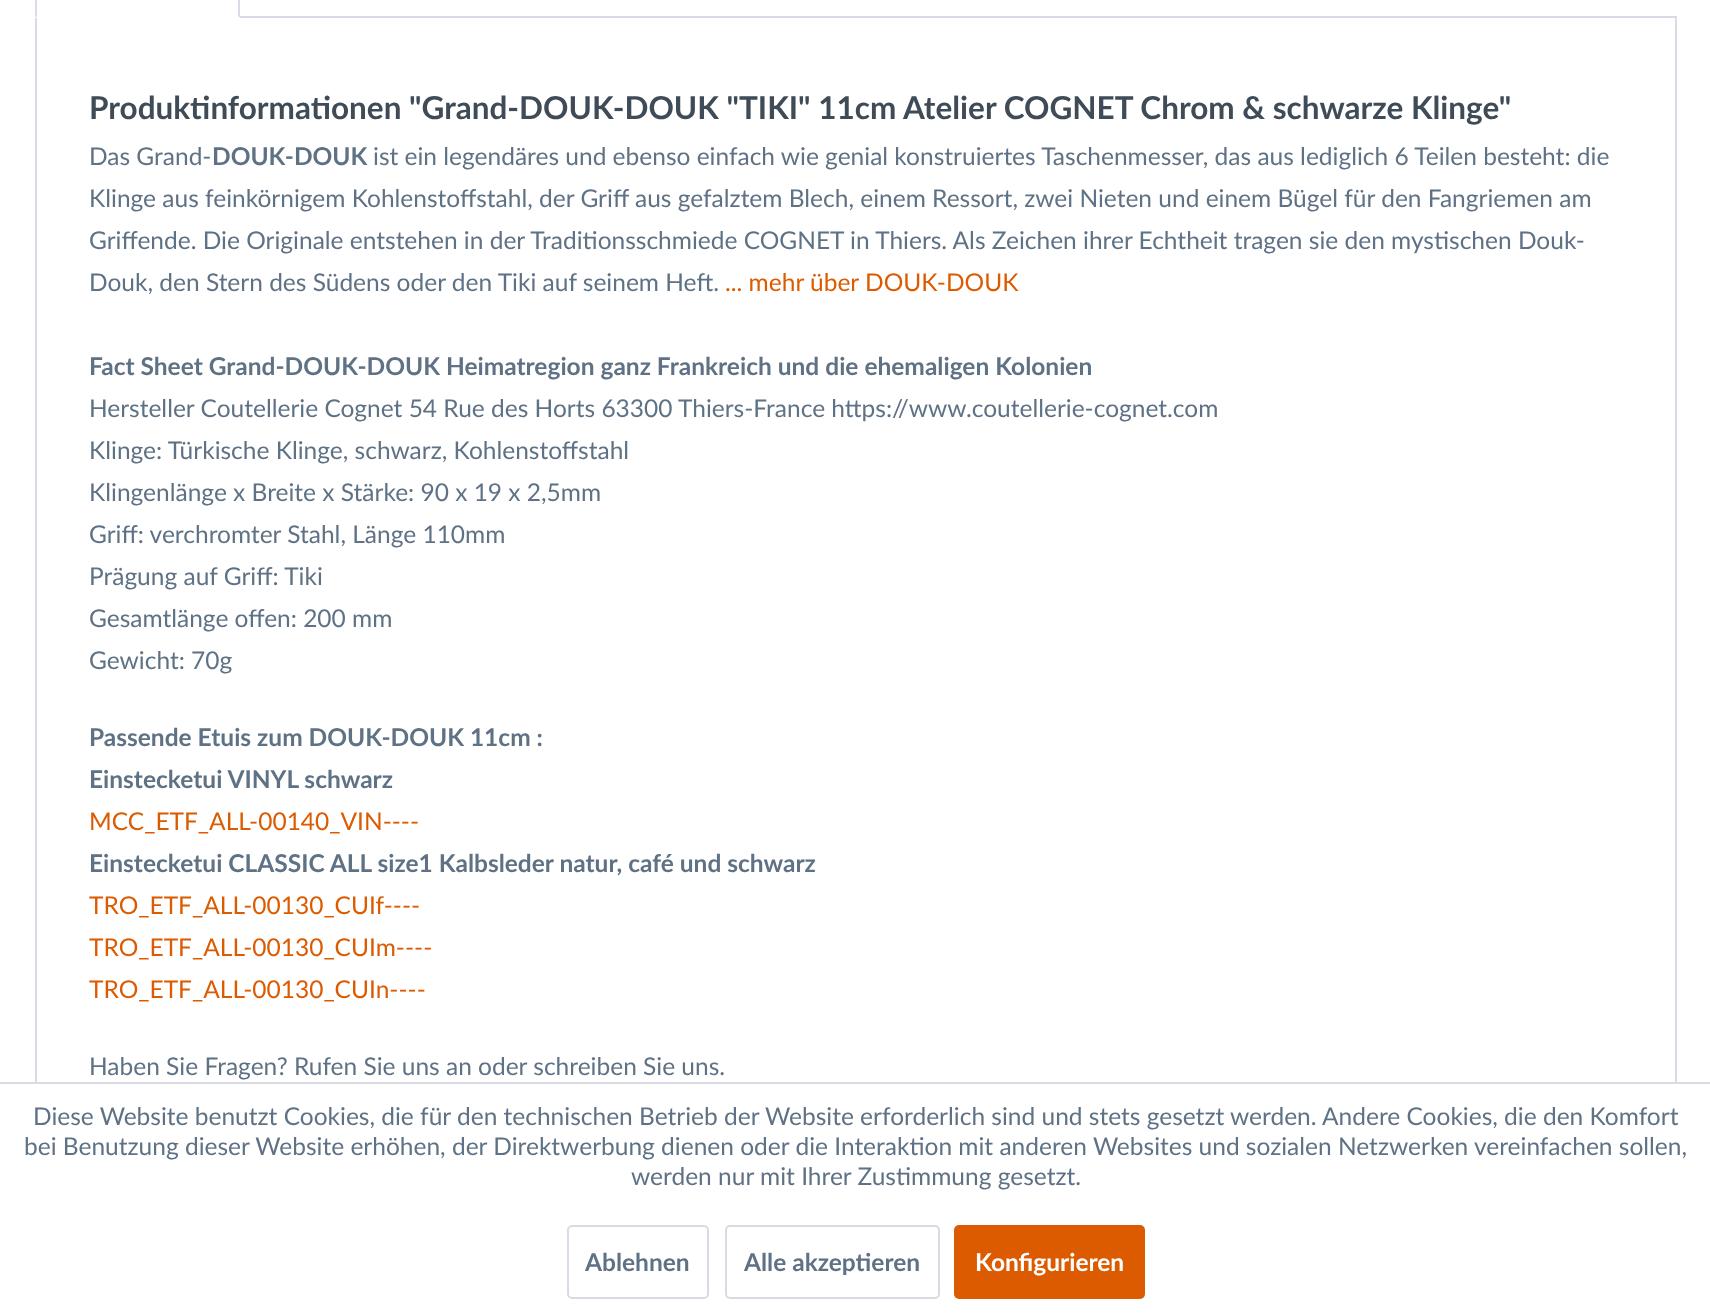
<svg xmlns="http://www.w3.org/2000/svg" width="1710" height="1316">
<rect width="100%" height="100%" fill="#fff"/>
<rect x="36" y="17" width="1640" height="1265" fill="none" stroke="#dadae5" stroke-width="2"/>
<rect x="35" y="16" width="205" height="2" fill="#fff"/>
<path d="M238-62l2 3v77l-2-2v-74l-1-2z" fill="#dadae5"/>
<path d="M240 18l-2-2h-201l-2 2z" fill="#fff"/>
<path d="M35 18l2-2c0-9-1-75 1-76l-2-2c0 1-1 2-1 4z" fill="#dadae5"/>
<text x="89" y="119" style="font-family:Lato;font-size:31.5px;font-weight:bold;fill:#3f4c58">Produktinformationen "Grand-DOUK-DOUK "TIKI" 11cm Atelier COGNET Chrom &amp; schwarze Klinge"</text>
<text x="89" y="165" style="font-family:Lato;font-size:24.5px;fill:#5f7285">Das Grand-</text>
<text x="212" y="165" style="font-family:Lato;font-size:24.5px;font-weight:bold;fill:#5f7285">DOUK-DOUK</text>
<text x="373" y="165" style="font-family:Lato;font-size:24.5px;fill:#5f7285">ist ein legendäres und ebenso einfach wie genial konstruiertes Taschenmesser, das aus lediglich 6 Teilen besteht: die</text>
<text x="89" y="207" style="font-family:Lato;font-size:24.5px;fill:#5f7285">Klinge aus feinkörnigem Kohlenstoffstahl, der Griff aus gefalztem Blech, einem Ressort, zwei Nieten und einem Bügel für den Fangriemen am</text>
<text x="89" y="249" style="font-family:Lato;font-size:24.5px;fill:#5f7285">Griffende. Die Originale entstehen in der Traditionsschmiede COGNET in Thiers. Als Zeichen ihrer Echtheit tragen sie den mystischen Douk-</text>
<text x="89" y="291" style="font-family:Lato;font-size:24.5px;fill:#5f7285">Douk, den Stern des Südens oder den Tiki auf seinem Heft.</text>
<text x="725" y="291" style="font-family:Lato;font-size:24.5px;fill:#dd5b00">... mehr über DOUK-DOUK</text>
<text x="89" y="375" style="font-family:Lato;font-size:24.5px;font-weight:bold;fill:#5f7285">Fact Sheet Grand-DOUK-DOUK Heimatregion ganz Frankreich und die ehemaligen Kolonien</text>
<text x="89" y="417" style="font-family:Lato;font-size:24.5px;fill:#5f7285">Hersteller Coutellerie Cognet 54 Rue des Horts 63300 Thiers-France https://www.coutellerie-cognet.com</text>
<text x="89" y="459" style="font-family:Lato;font-size:24.5px;fill:#5f7285">Klinge: Türkische Klinge, schwarz, Kohlenstoffstahl</text>
<text x="89" y="501" style="font-family:Lato;font-size:24.5px;fill:#5f7285">Klingenlänge x Breite x Stärke: 90 x 19 x 2,5mm</text>
<text x="89" y="543" style="font-family:Lato;font-size:24.5px;fill:#5f7285">Griff: verchromter Stahl, Länge 110mm</text>
<text x="89" y="585" style="font-family:Lato;font-size:24.5px;fill:#5f7285">Prägung auf Griff: Tiki</text>
<text x="89" y="627" style="font-family:Lato;font-size:24.5px;fill:#5f7285">Gesamtlänge offen: 200 mm</text>
<text x="89" y="669" style="font-family:Lato;font-size:24.5px;fill:#5f7285">Gewicht: 70g</text>
<text x="89" y="746" style="font-family:Lato;font-size:24.5px;font-weight:bold;fill:#5f7285">Passende Etuis zum DOUK-DOUK 11cm :</text>
<text x="89" y="788" style="font-family:Lato;font-size:24.5px;font-weight:bold;fill:#5f7285">Einstecketui VINYL schwarz</text>
<text x="89" y="830" style="font-family:Lato;font-size:24.5px;fill:#dd5b00">MCC_ETF_ALL-00140_VIN----</text>
<text x="89" y="872" style="font-family:Lato;font-size:24.5px;font-weight:bold;fill:#5f7285">Einstecketui CLASSIC ALL size1 Kalbsleder natur, café und schwarz</text>
<text x="89" y="914" style="font-family:Lato;font-size:24.5px;fill:#dd5b00">TRO_ETF_ALL-00130_CUIf----</text>
<text x="89" y="956" style="font-family:Lato;font-size:24.5px;fill:#dd5b00">TRO_ETF_ALL-00130_CUIm----</text>
<text x="89" y="998" style="font-family:Lato;font-size:24.5px;fill:#dd5b00">TRO_ETF_ALL-00130_CUIn----</text>
<text x="89" y="1075" style="font-family:Lato;font-size:24.5px;fill:#5f7285">Haben Sie Fragen? Rufen Sie uns an oder schreiben Sie uns.</text>
<rect x="35" y="1084" width="1642" height="199" fill="#fff"/>
<rect y="1082" width="1710" height="2" fill="#dadae5"/>
<text x="33" y="1125" style="font-family:Lato;font-size:24.5px;fill:#5f7285">Diese Website benutzt Cookies, die für den technischen Betrieb der Website erforderlich sind und stets gesetzt werden. Andere Cookies, die den Komfort</text>
<text x="24" y="1155" style="font-family:Lato;font-size:24.5px;fill:#5f7285">bei Benutzung dieser Website erhöhen, der Direktwerbung dienen oder die Interaktion mit anderen Websites und sozialen Netzwerken vereinfachen sollen,</text>
<text x="631" y="1185" style="font-family:Lato;font-size:24.5px;fill:#5f7285">werden nur mit Ihrer Zustimmung gesetzt.</text>
<rect x="568" y="1226" width="140" height="72" rx="4" fill="none" stroke="#dadae5" stroke-width="2"/>
<text x="585" y="1271" style="font-family:Lato;font-size:24.5px;font-weight:bold;fill:#5f7285">Ablehnen</text>
<rect x="726" y="1226" width="213" height="72" rx="4" fill="none" stroke="#dadae5" stroke-width="2"/>
<text x="744" y="1271" style="font-family:Lato;font-size:24.5px;font-weight:bold;fill:#5f7285">Alle akzeptieren</text>
<rect x="954" y="1225" width="191" height="74" rx="5" fill="#dd5b00"/>
<text x="975" y="1271" style="font-family:Lato;font-size:24.5px;font-weight:bold;fill:#fff">Konfigurieren</text>
</svg>
